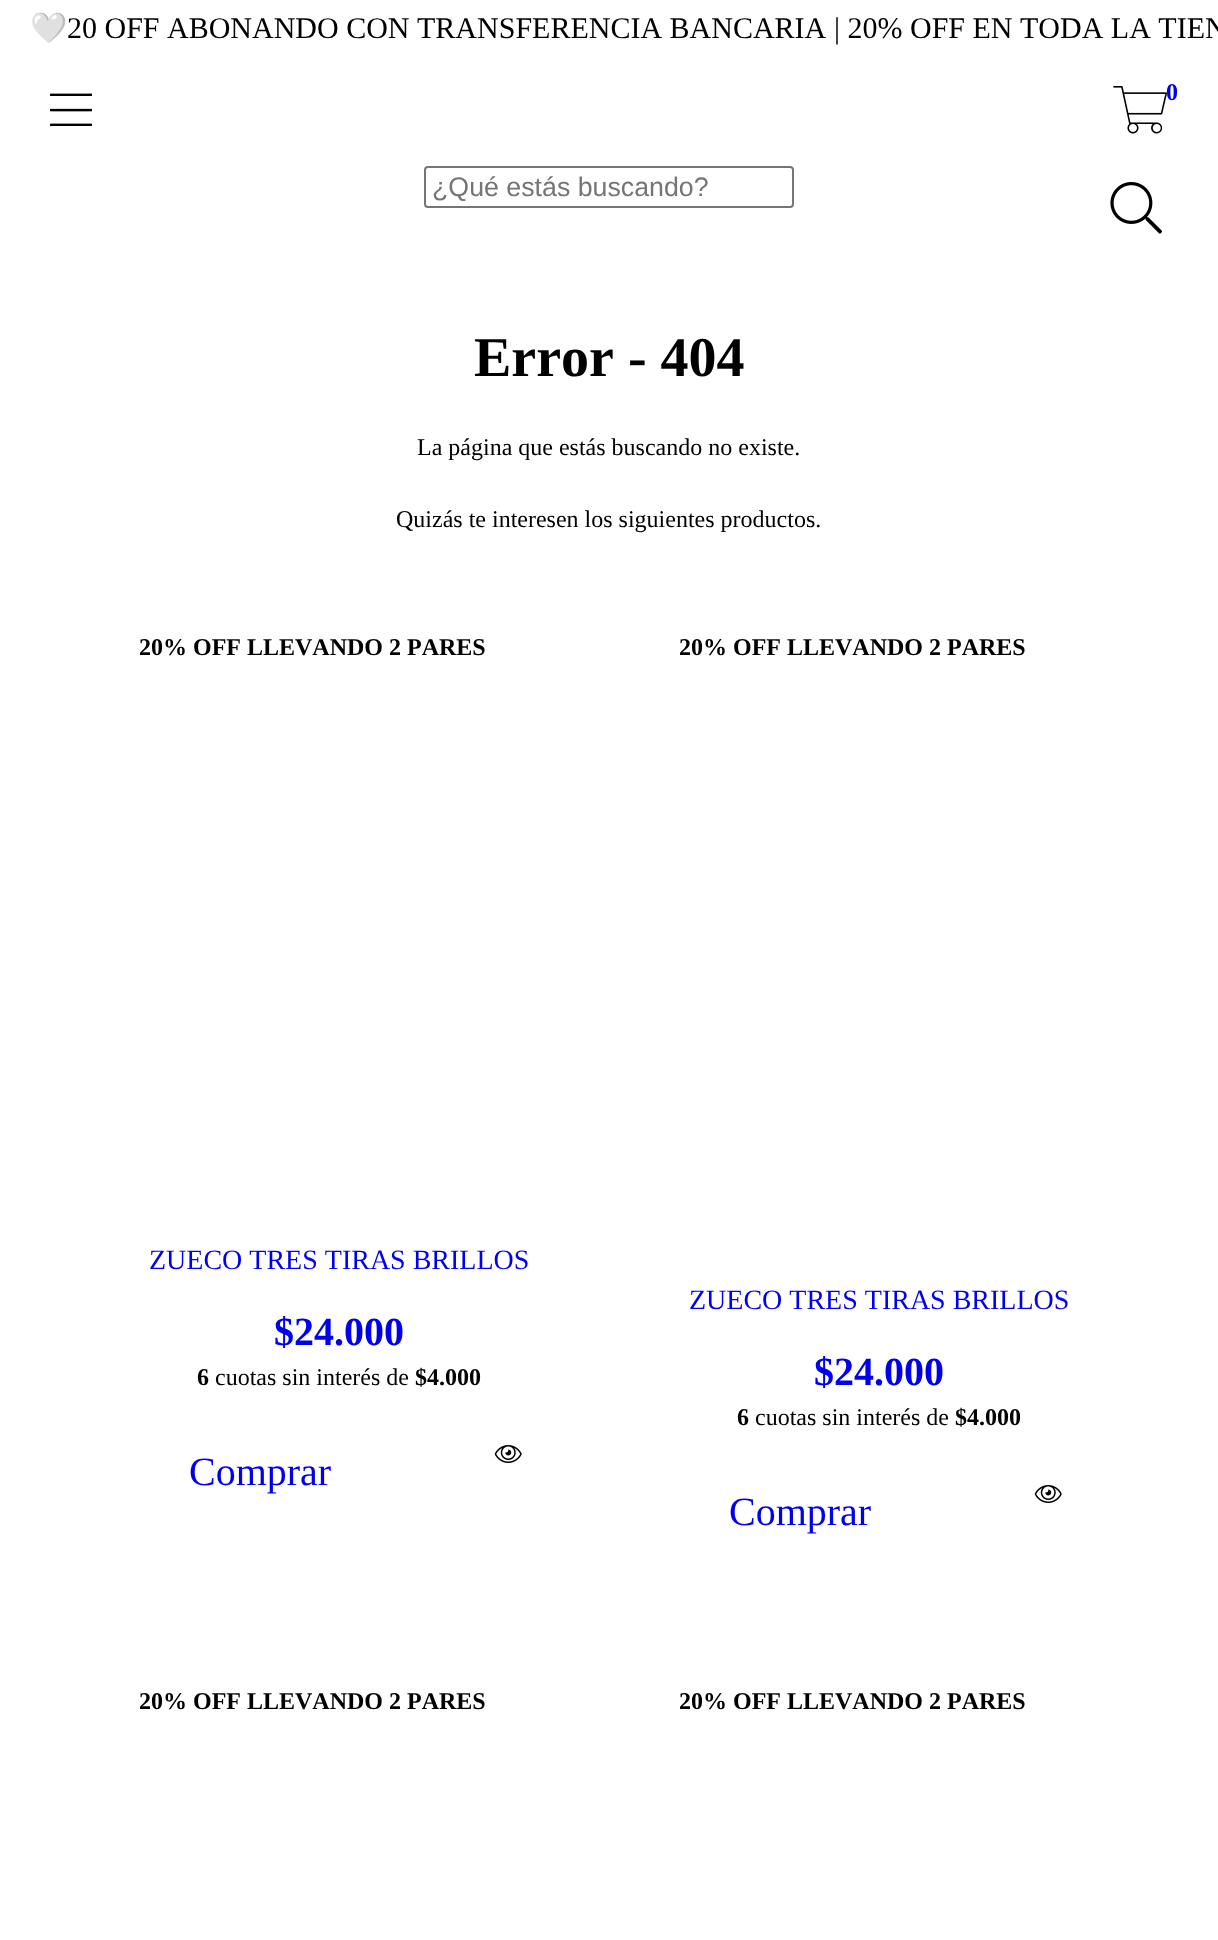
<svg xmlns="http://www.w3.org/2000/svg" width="1218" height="1940">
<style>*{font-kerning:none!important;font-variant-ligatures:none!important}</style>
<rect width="100%" height="100%" fill="#fff"/>
<text x="30" y="38" style="font-family:Noto Color Emoji;font-size:30px;fill:#000">🤍</text>
<text x="67" y="38" style="font-family:Liberation Serif;font-size:30px;fill:#000">20 OFF ABONANDO CON TRANSFERENCIA BANCARIA</text>
<text x="834" y="38" style="font-family:Liberation Serif;font-size:30px;fill:#000">| 20% OFF EN TODA LA TIEN</text>
<image x="50" y="93" width="42" height="33" href="media/1.png"/>
<image x="1113" y="86" width="54" height="48" href="media/2.png"/>
<text x="1166" y="100" style="font-family:Liberation Serif;font-size:24px;font-weight:bold;fill:#00e">0</text>
<rect x="425" y="167" width="368" height="40" rx="3" fill="none" stroke="#767676" stroke-width="2"/>
<text x="432" y="196" style="font-family:Liberation Sans;font-size:26.75px;fill:#757575">¿Qué estás buscando?</text>
<image x="1110" y="182" width="52" height="52" href="media/3.png"/>
<text x="474" y="376" style="font-family:Liberation Serif;font-size:56px;font-weight:bold;fill:#000">Error - 404</text>
<text x="417" y="455" style="font-family:Liberation Serif;font-size:24px;fill:#000">La página que estás buscando no existe.</text>
<text x="396" y="527" style="font-family:Liberation Serif;font-size:24px;fill:#000">Quizás te interesen los siguientes productos.</text>
<text x="139" y="655" style="font-family:Liberation Serif;font-size:24px;font-weight:bold;fill:#000">20% OFF LLEVANDO 2 PARES</text>
<text x="149" y="1269" style="font-family:Liberation Serif;font-size:28px;fill:#00e">ZUECO TRES TIRAS BRILLOS</text>
<text x="274" y="1345" style="font-family:Liberation Serif;font-size:40px;font-weight:bold;fill:#00e">$24.000</text>
<text x="197" y="1385" style="font-family:Liberation Serif;font-size:24px;font-weight:bold;fill:#000">6</text>
<text x="215" y="1385" style="font-family:Liberation Serif;font-size:24px;fill:#000">cuotas sin interés de</text>
<text x="415" y="1385" style="font-family:Liberation Serif;font-size:24px;font-weight:bold;fill:#000">$4.000</text>
<image x="494" y="1445" width="28" height="18" href="media/4.png"/>
<text x="189" y="1485" style="font-family:Liberation Serif;font-size:40px;fill:#00e">Comprar</text>
<text x="679" y="655" style="font-family:Liberation Serif;font-size:24px;font-weight:bold;fill:#000">20% OFF LLEVANDO 2 PARES</text>
<text x="689" y="1309" style="font-family:Liberation Serif;font-size:28px;fill:#00e">ZUECO TRES TIRAS BRILLOS</text>
<text x="814" y="1385" style="font-family:Liberation Serif;font-size:40px;font-weight:bold;fill:#00e">$24.000</text>
<text x="737" y="1425" style="font-family:Liberation Serif;font-size:24px;font-weight:bold;fill:#000">6</text>
<text x="755" y="1425" style="font-family:Liberation Serif;font-size:24px;fill:#000">cuotas sin interés de</text>
<text x="955" y="1425" style="font-family:Liberation Serif;font-size:24px;font-weight:bold;fill:#000">$4.000</text>
<image x="1034" y="1485" width="28" height="18" href="media/4.png"/>
<text x="729" y="1525" style="font-family:Liberation Serif;font-size:40px;fill:#00e">Comprar</text>
<text x="139" y="1709" style="font-family:Liberation Serif;font-size:24px;font-weight:bold;fill:#000">20% OFF LLEVANDO 2 PARES</text>
<text x="679" y="1709" style="font-family:Liberation Serif;font-size:24px;font-weight:bold;fill:#000">20% OFF LLEVANDO 2 PARES</text>
</svg>
